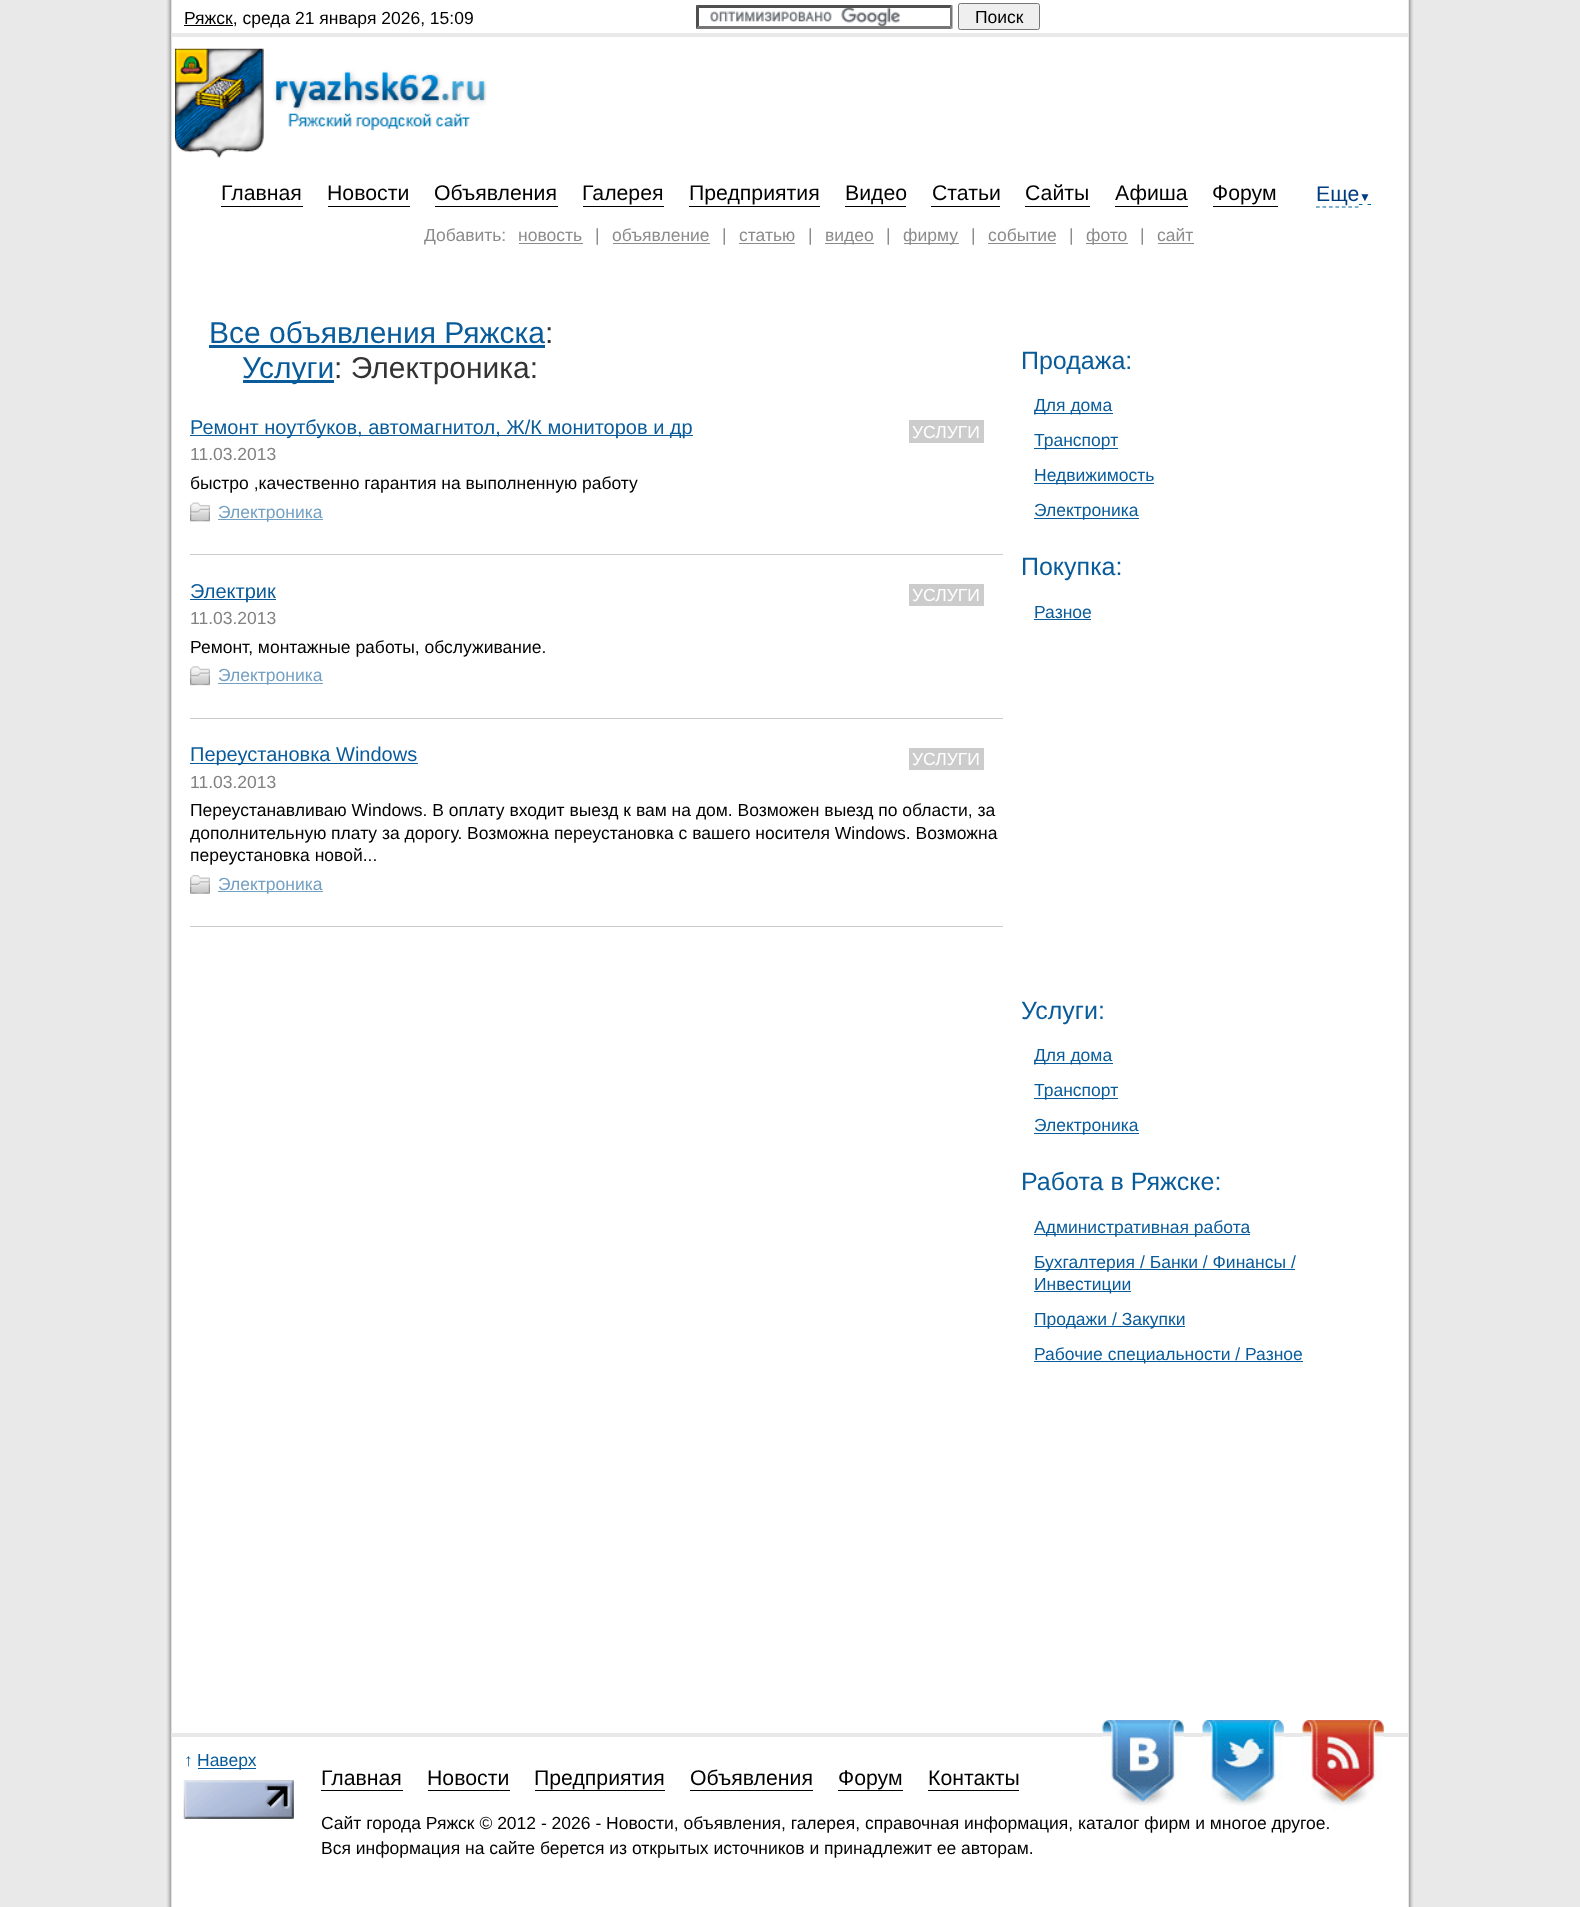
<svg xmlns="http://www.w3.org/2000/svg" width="1580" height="1907">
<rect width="100%" height="100%" fill="#e9e9e9"/>
<image x="165" y="0" width="1250" height="1907" href="media/1.png"/>
<rect x="171" y="33" width="1238" height="4" fill="#e9e9e9"/>
<rect x="184" y="25" width="49" height="1" fill="#000"/>
<text x="184" y="24" style="font-family:Liberation Sans;font-size:17.5px;fill:#000">Ряжск, среда 21 января 2026, 15:09</text>
<image x="710" y="8" width="190" height="18" href="media/2.png"/>
<path d="M696 5h256l-2 3h-251z" fill="#4f4f4f"/>
<path d="M952.5 5v24l-2.5-3v-18.5z" fill="#767676"/>
<path d="M952 29h-256l3-3h251z" fill="#767676"/>
<path d="M696 29v-24l3 2.5v18.5z" fill="#4f4f4f"/>
<rect x="958.5" y="3.5" width="81" height="26" rx="2" fill="#efefef" stroke="#767676"/>
<text x="975" y="23" style="font-family:Liberation Sans;font-size:17.5px;fill:#000">Поиск</text>
<image x="175" y="48" width="312" height="110" href="media/3.png"/>
<rect x="221" y="206" width="82" height="1" fill="#000"/>
<text x="221" y="200" style="font-family:Liberation Sans;font-size:21.25px;fill:#000">Главная</text>
<rect x="328" y="206" width="82" height="1" fill="#000"/>
<text x="327" y="200" style="font-family:Liberation Sans;font-size:21.25px;fill:#000">Новости</text>
<rect x="435" y="206" width="123" height="1" fill="#000"/>
<text x="434" y="200" style="font-family:Liberation Sans;font-size:21.25px;fill:#000">Объявления</text>
<rect x="583" y="206" width="81" height="1" fill="#000"/>
<text x="582" y="200" style="font-family:Liberation Sans;font-size:21.25px;fill:#000">Галерея</text>
<rect x="689" y="206" width="131" height="1" fill="#000"/>
<text x="689" y="200" style="font-family:Liberation Sans;font-size:21.25px;fill:#000">Предприятия</text>
<rect x="845" y="206" width="61" height="1" fill="#000"/>
<text x="845" y="200" style="font-family:Liberation Sans;font-size:21.25px;fill:#000">Видео</text>
<rect x="931" y="206" width="69" height="1" fill="#000"/>
<text x="932" y="200" style="font-family:Liberation Sans;font-size:21.25px;fill:#000">Статьи</text>
<rect x="1025" y="206" width="65" height="1" fill="#000"/>
<text x="1025" y="200" style="font-family:Liberation Sans;font-size:21.25px;fill:#000">Сайты</text>
<rect x="1115" y="206" width="73" height="1" fill="#000"/>
<text x="1115" y="200" style="font-family:Liberation Sans;font-size:21.25px;fill:#000">Афиша</text>
<rect x="1213" y="206" width="65" height="1" fill="#000"/>
<text x="1212" y="200" style="font-family:Liberation Sans;font-size:21.25px;fill:#000">Форум</text>
<text x="1316" y="201" style="font-family:Liberation Sans;font-size:21.25px;fill:#003a81">Еще</text>
<text x="1359" y="201" style="font-family:Liberation Sans;font-size:12px;fill:#003a81">▼</text>
<path d="M1316 207h43" fill="none" stroke="#069" stroke-width="1.2" stroke-dasharray="3.75 2.71"/>
<path d="M1359 204.5h3.5m5 0h3.5" fill="none" stroke="#069" stroke-width="1.2"/>
<text x="424" y="241" style="font-family:Liberation Sans;font-size:17.5px;fill:#8b8b8b">Добавить:</text>
<text x="518" y="241" style="font-family:Liberation Sans;font-size:17.5px;fill:#8b8b8b">новость</text>
<rect x="519" y="243" width="64" height="1" fill="#8b8b8b"/>
<text x="595" y="241" style="font-family:Liberation Sans;font-size:17.5px;fill:#8b8b8b">|</text>
<text x="612" y="241" style="font-family:Liberation Sans;font-size:17.5px;fill:#8b8b8b">объявление</text>
<rect x="613" y="243" width="97" height="1" fill="#8b8b8b"/>
<text x="722" y="241" style="font-family:Liberation Sans;font-size:17.5px;fill:#8b8b8b">|</text>
<text x="739" y="241" style="font-family:Liberation Sans;font-size:17.5px;fill:#8b8b8b">статью</text>
<rect x="739" y="243" width="56" height="1" fill="#8b8b8b"/>
<text x="808" y="241" style="font-family:Liberation Sans;font-size:17.5px;fill:#8b8b8b">|</text>
<rect x="825" y="243" width="49" height="1" fill="#8b8b8b"/>
<text x="825" y="241" style="font-family:Liberation Sans;font-size:17.5px;fill:#8b8b8b">видео</text>
<text x="886" y="241" style="font-family:Liberation Sans;font-size:17.5px;fill:#8b8b8b">|</text>
<rect x="904" y="243" width="55" height="1" fill="#8b8b8b"/>
<text x="903" y="241" style="font-family:Liberation Sans;font-size:17.5px;fill:#8b8b8b">фирму</text>
<text x="971" y="241" style="font-family:Liberation Sans;font-size:17.5px;fill:#8b8b8b">|</text>
<text x="988" y="241" style="font-family:Liberation Sans;font-size:17.5px;fill:#8b8b8b">событие</text>
<rect x="988" y="243" width="68" height="1" fill="#8b8b8b"/>
<text x="1069" y="241" style="font-family:Liberation Sans;font-size:17.5px;fill:#8b8b8b">|</text>
<rect x="1086" y="243" width="42" height="1" fill="#8b8b8b"/>
<text x="1086" y="241" style="font-family:Liberation Sans;font-size:17.5px;fill:#8b8b8b">фото</text>
<text x="1140" y="241" style="font-family:Liberation Sans;font-size:17.5px;fill:#8b8b8b">|</text>
<text x="1157" y="241" style="font-family:Liberation Sans;font-size:17.5px;fill:#8b8b8b">сайт</text>
<rect x="1158" y="243" width="36" height="1" fill="#8b8b8b"/>
<text x="209" y="343" style="font-family:Liberation Sans;font-size:30px;fill:#095b9a">Все объявления Ряжска</text>
<rect x="209" y="345" width="336" height="3" fill="#095b9a"/>
<text x="545" y="343" style="font-family:Liberation Sans;font-size:30px;fill:#333">:</text>
<rect x="243" y="380" width="91" height="3" fill="#095b9a"/>
<text x="242" y="378" style="font-family:Liberation Sans;font-size:30px;fill:#095b9a">Услуги</text>
<text x="334" y="378" style="font-family:Liberation Sans;font-size:30px;fill:#333">: Электроника:</text>
<rect x="190" y="554" width="813" height="1" fill="#ccc"/>
<rect x="190" y="435" width="503" height="1" fill="#095b9a"/>
<text x="190" y="434" style="font-family:Liberation Sans;font-size:20px;fill:#095b9a">Ремонт ноутбуков, автомагнитол, Ж/К мониторов и др</text>
<rect x="909" y="420" width="75" height="23" fill="#ccc"/>
<text x="912" y="438" style="font-family:Liberation Sans;font-size:17.5px;fill:#fff">УСЛУГИ</text>
<text x="190" y="460" style="font-family:Liberation Sans;font-size:17.5px;fill:#818181">11.03.2013</text>
<text x="190" y="489" style="font-family:Liberation Sans;font-size:17.5px;fill:#000">быстро ,качественно гарантия на выполненную работу</text>
<image x="190" y="502" width="20" height="20" href="media/4.png"/>
<rect x="218" y="519" width="105" height="1" fill="#74a0c2"/>
<text x="218" y="518" style="font-family:Liberation Sans;font-size:17.5px;fill:#74a0c2">Электроника</text>
<rect x="190" y="718" width="813" height="1" fill="#ccc"/>
<rect x="190" y="599" width="86" height="1" fill="#095b9a"/>
<text x="190" y="598" style="font-family:Liberation Sans;font-size:20px;fill:#095b9a">Электрик</text>
<rect x="909" y="584" width="75" height="22" fill="#ccc"/>
<text x="912" y="601" style="font-family:Liberation Sans;font-size:17.5px;fill:#fff">УСЛУГИ</text>
<text x="190" y="624" style="font-family:Liberation Sans;font-size:17.5px;fill:#818181">11.03.2013</text>
<text x="190" y="653" style="font-family:Liberation Sans;font-size:17.5px;fill:#000">Ремонт, монтажные работы, обслуживание.</text>
<image x="190" y="666" width="20" height="20" href="media/5.png"/>
<rect x="218" y="683" width="105" height="1" fill="#74a0c2"/>
<text x="218" y="681" style="font-family:Liberation Sans;font-size:17.5px;fill:#74a0c2">Электроника</text>
<rect x="190" y="926" width="813" height="1" fill="#ccc"/>
<rect x="190" y="763" width="228" height="1" fill="#095b9a"/>
<text x="190" y="761" style="font-family:Liberation Sans;font-size:20px;fill:#095b9a">Переустановка Windows</text>
<rect x="909" y="748" width="75" height="22" fill="#ccc"/>
<text x="912" y="765" style="font-family:Liberation Sans;font-size:17.5px;fill:#fff">УСЛУГИ</text>
<text x="190" y="788" style="font-family:Liberation Sans;font-size:17.5px;fill:#818181">11.03.2013</text>
<text x="190" y="816" style="font-family:Liberation Sans;font-size:17.5px;fill:#000">Переустанавливаю Windows. В оплату входит выезд к вам на дом. Возможен выезд по области, за</text>
<text x="190" y="839" style="font-family:Liberation Sans;font-size:17.5px;fill:#000">дополнительную плату за дорогу. Возможна переустановка с вашего носителя Windows. Возможна</text>
<text x="190" y="861" style="font-family:Liberation Sans;font-size:17.5px;fill:#000">переустановка новой...</text>
<image x="190" y="875" width="20" height="19" href="media/6.png"/>
<rect x="218" y="891" width="105" height="1" fill="#74a0c2"/>
<text x="218" y="890" style="font-family:Liberation Sans;font-size:17.5px;fill:#74a0c2">Электроника</text>
<text x="1021" y="369" style="font-family:Liberation Sans;font-size:25px;fill:#095b9a">Продажа:</text>
<rect x="1034" y="413" width="79" height="1" fill="#095b9a"/>
<text x="1034" y="411" style="font-family:Liberation Sans;font-size:17.5px;fill:#095b9a">Для дома</text>
<rect x="1034" y="448" width="84" height="1" fill="#095b9a"/>
<text x="1034" y="446" style="font-family:Liberation Sans;font-size:17.5px;fill:#095b9a">Транспорт</text>
<rect x="1034" y="483" width="120" height="1" fill="#095b9a"/>
<text x="1034" y="481" style="font-family:Liberation Sans;font-size:17.5px;fill:#095b9a">Недвижимость</text>
<rect x="1034" y="518" width="105" height="1" fill="#095b9a"/>
<text x="1034" y="516" style="font-family:Liberation Sans;font-size:17.5px;fill:#095b9a">Электроника</text>
<text x="1021" y="575" style="font-family:Liberation Sans;font-size:25px;fill:#095b9a">Покупка:</text>
<text x="1034" y="618" style="font-family:Liberation Sans;font-size:17.5px;fill:#095b9a">Разное</text>
<rect x="1034" y="619" width="57" height="1" fill="#095b9a"/>
<text x="1021" y="1019" style="font-family:Liberation Sans;font-size:25px;fill:#095b9a">Услуги:</text>
<rect x="1034" y="1063" width="79" height="1" fill="#095b9a"/>
<text x="1034" y="1061" style="font-family:Liberation Sans;font-size:17.5px;fill:#095b9a">Для дома</text>
<rect x="1034" y="1098" width="84" height="1" fill="#095b9a"/>
<text x="1034" y="1096" style="font-family:Liberation Sans;font-size:17.5px;fill:#095b9a">Транспорт</text>
<rect x="1034" y="1133" width="105" height="1" fill="#095b9a"/>
<text x="1034" y="1131" style="font-family:Liberation Sans;font-size:17.5px;fill:#095b9a">Электроника</text>
<text x="1021" y="1190" style="font-family:Liberation Sans;font-size:25px;fill:#095b9a">Работа в Ряжске:</text>
<rect x="1034" y="1234" width="216" height="1" fill="#095b9a"/>
<text x="1034" y="1233" style="font-family:Liberation Sans;font-size:17.5px;fill:#095b9a">Административная работа</text>
<rect x="1034" y="1269" width="261" height="1" fill="#095b9a"/>
<text x="1034" y="1268" style="font-family:Liberation Sans;font-size:17.5px;fill:#095b9a">Бухгалтерия / Банки / Финансы /</text>
<rect x="1034" y="1291" width="97" height="1" fill="#095b9a"/>
<text x="1034" y="1290" style="font-family:Liberation Sans;font-size:17.5px;fill:#095b9a">Инвестиции</text>
<rect x="1034" y="1326" width="151" height="1" fill="#095b9a"/>
<text x="1034" y="1325" style="font-family:Liberation Sans;font-size:17.5px;fill:#095b9a">Продажи / Закупки</text>
<rect x="1034" y="1361" width="269" height="1" fill="#095b9a"/>
<text x="1034" y="1360" style="font-family:Liberation Sans;font-size:17.5px;fill:#095b9a">Рабочие специальности / Разное</text>
<rect x="171" y="1733" width="1238" height="4" fill="#e9e9e9"/>
<text x="184" y="1766" style="font-family:Liberation Sans;font-size:17.5px;fill:#095b9a">↑</text>
<rect x="198" y="1768" width="58" height="1" fill="#095b9a"/>
<text x="197" y="1766" style="font-family:Liberation Sans;font-size:17.5px;fill:#095b9a">Наверх</text>
<image x="183" y="1780" width="111" height="39" href="media/7.png"/>
<image x="1102" y="1720" width="82" height="90" href="media/8.png"/>
<image x="1202" y="1720" width="82" height="90" href="media/9.png"/>
<image x="1302" y="1720" width="82" height="90" href="media/10.png"/>
<rect x="321" y="1790" width="82" height="1" fill="#000"/>
<text x="321" y="1785" style="font-family:Liberation Sans;font-size:21.25px;fill:#000">Главная</text>
<rect x="428" y="1790" width="82" height="1" fill="#000"/>
<text x="427" y="1785" style="font-family:Liberation Sans;font-size:21.25px;fill:#000">Новости</text>
<rect x="535" y="1790" width="130" height="1" fill="#000"/>
<text x="534" y="1785" style="font-family:Liberation Sans;font-size:21.25px;fill:#000">Предприятия</text>
<rect x="690" y="1790" width="123" height="1" fill="#000"/>
<text x="690" y="1785" style="font-family:Liberation Sans;font-size:21.25px;fill:#000">Объявления</text>
<rect x="838" y="1790" width="65" height="1" fill="#000"/>
<text x="838" y="1785" style="font-family:Liberation Sans;font-size:21.25px;fill:#000">Форум</text>
<rect x="928" y="1790" width="91" height="1" fill="#000"/>
<text x="928" y="1785" style="font-family:Liberation Sans;font-size:21.25px;fill:#000">Контакты</text>
<text x="321" y="1829" style="font-family:Liberation Sans;font-size:17.5px;fill:#000">Сайт города Ряжск © 2012 - 2026 - Новости, объявления, галерея, справочная информация, каталог фирм и многое другое.</text>
<text x="321" y="1854" style="font-family:Liberation Sans;font-size:17.5px;fill:#000">Вся информация на сайте берется из открытых источников и принадлежит ее авторам.</text>
</svg>
